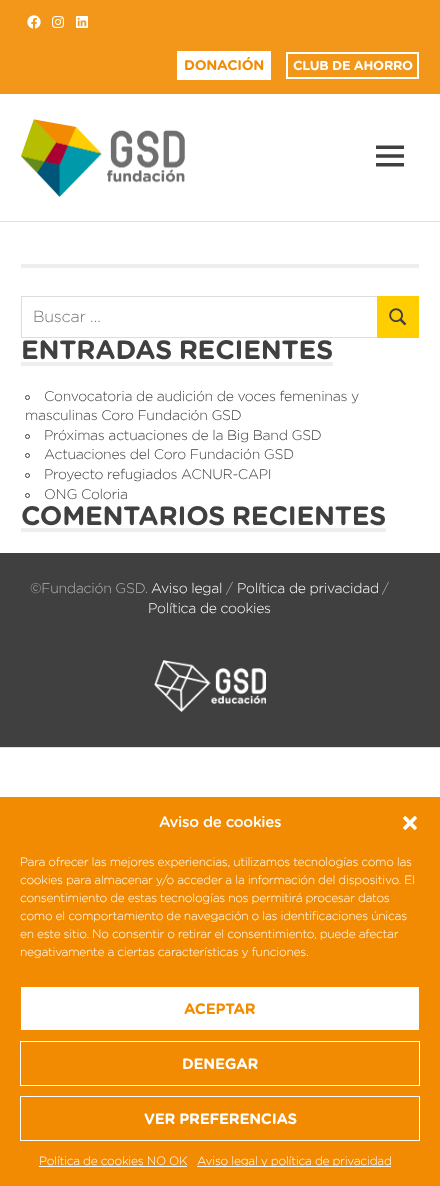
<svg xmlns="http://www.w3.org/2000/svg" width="440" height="1186">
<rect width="100%" height="100%" fill="#fff"/>
<rect width="440" height="94" fill="#f3971b"/>
<image x="27" y="15" width="14" height="14" href="media/1.png"/>
<image x="52" y="16" width="12" height="12" href="media/2.png"/>
<image x="76" y="16" width="12" height="12" href="media/3.png"/>
<rect x="178" y="52" width="92" height="27" fill="none" stroke="#fff" stroke-width="2"/>
<rect x="179" y="53" width="90" height="25" fill="#fff"/>
<text x="184" y="70" style="font-family:'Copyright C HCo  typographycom';font-size:14px;letter-spacing:-0.28px;fill:#f28b02">DONACIÓN</text>
<rect x="287" y="53" width="131" height="25" fill="none" stroke="#fff" stroke-width="2"/>
<text x="293" y="70" word-spacing="-0.1" style="font-family:'Copyright C HCo  typographycom';font-size:13px;letter-spacing:-0.28px;fill:#fff">CLUB DE AHORRO</text>
<rect y="221" width="440" height="1" fill="#e0e0e0"/>
<image x="21" y="119" width="164" height="78" href="media/4.png"/>
<image x="376" y="145" width="28" height="22" href="media/5.png"/>
<rect x="21" y="264" width="398" height="4" fill="#eee"/>
<rect x="21.5" y="296.5" width="356" height="41" fill="none" stroke="#ddd"/>
<text x="33" y="322" style="font-family:'Copyright C HCo  typographycom';font-size:16px;font-weight:300;letter-spacing:-0.25px;fill:#757575">Buscar …</text>
<rect x="377" y="296" width="42" height="42" fill="#ffce00"/>
<image x="389" y="308" width="18" height="18" href="media/6.png"/>
<rect x="21" y="362" width="312" height="4" fill="#eee"/>
<text x="21" y="359" word-spacing="-1" style="font-family:'Copyright C HCo  typographycom';font-size:26.6px;letter-spacing:-0.25px;fill:#404040">ENTRADAS RECIENTES</text>
<circle cx="27.5" cy="397.5" r="2" fill="none" stroke="#404040"/>
<text x="44" y="401" word-spacing="-0.1" style="font-family:'Copyright C HCo  typographycom';font-size:14px;font-weight:300;letter-spacing:-0.28px;fill:#404040">Convocatoria de audición de voces femeninas y</text>
<text x="25" y="420" word-spacing="-0.1" style="font-family:'Copyright C HCo  typographycom';font-size:14px;font-weight:300;letter-spacing:-0.28px;fill:#404040">masculinas Coro Fundación GSD</text>
<circle cx="27.5" cy="436.5" r="2" fill="none" stroke="#404040"/>
<text x="44" y="440" word-spacing="-0.1" style="font-family:'Copyright C HCo  typographycom';font-size:14px;font-weight:300;letter-spacing:-0.28px;fill:#404040">Próximas actuaciones de la Big Band GSD</text>
<circle cx="27.5" cy="455.5" r="2" fill="none" stroke="#404040"/>
<text x="44" y="459" word-spacing="-0.1" style="font-family:'Copyright C HCo  typographycom';font-size:14px;font-weight:300;letter-spacing:-0.28px;fill:#404040">Actuaciones del Coro Fundación GSD</text>
<circle cx="27.5" cy="475.5" r="2" fill="none" stroke="#404040"/>
<text x="44" y="479" word-spacing="-0.1" style="font-family:'Copyright C HCo  typographycom';font-size:14px;font-weight:300;letter-spacing:-0.28px;fill:#404040">Proyecto refugiados ACNUR-CAPI</text>
<circle cx="27.5" cy="495.5" r="2" fill="none" stroke="#404040"/>
<text x="44" y="499" word-spacing="-0.1" style="font-family:'Copyright C HCo  typographycom';font-size:14px;font-weight:300;letter-spacing:-0.28px;fill:#404040">ONG Coloria</text>
<rect x="21" y="528" width="365" height="4" fill="#eee"/>
<text x="21" y="525" word-spacing="-1" style="font-family:'Copyright C HCo  typographycom';font-size:26.6px;letter-spacing:-0.25px;fill:#404040">COMENTARIOS RECIENTES</text>
<rect y="553" width="440" height="194" fill="#404040"/>
<text x="30" y="593" word-spacing="-0.1" style="font-family:'Copyright C HCo  typographycom';font-size:14px;font-weight:300;letter-spacing:-0.28px;fill:#b3b3b3">©Fundación GSD.</text>
<text x="151" y="593" word-spacing="-0.1" style="font-family:'Copyright C HCo  typographycom';font-size:14px;font-weight:300;letter-spacing:-0.28px;fill:#fff">Aviso legal</text>
<text x="226" y="593" style="font-family:'Copyright C HCo  typographycom';font-size:14px;font-weight:300;letter-spacing:-0.28px;fill:#b3b3b3">/</text>
<text x="237" y="593" word-spacing="-0.1" style="font-family:'Copyright C HCo  typographycom';font-size:14px;font-weight:300;letter-spacing:-0.28px;fill:#fff">Política de privacidad</text>
<text x="382" y="593" style="font-family:'Copyright C HCo  typographycom';font-size:14px;font-weight:300;letter-spacing:-0.28px;fill:#b3b3b3">/</text>
<text x="148" y="613" word-spacing="-0.1" style="font-family:'Copyright C HCo  typographycom';font-size:14px;font-weight:300;letter-spacing:-0.28px;fill:#fff">Política de cookies</text>
<image x="154" y="660" width="112" height="52" href="media/7.png"/>
<rect y="747" width="440" height="1" fill="#e0e0e0"/>
<rect y="797" width="440" height="389" fill="#f28b02"/>
<text x="159" y="827" word-spacing="-0.1" style="font-family:'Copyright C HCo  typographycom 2';font-size:15px;font-weight:300;letter-spacing:-0.28px;fill:#fff">Aviso de cookies</text>
<image x="403" y="816" width="14" height="14" href="media/8.png"/>
<text x="20" y="866" word-spacing="-0.1" style="font-family:'Copyright C HCo  typographycom';font-size:12px;font-weight:300;letter-spacing:-0.28px;fill:#fff">Para ofrecer las mejores experiencias, utilizamos tecnologías como las</text>
<text x="20" y="884" word-spacing="-0.1" style="font-family:'Copyright C HCo  typographycom';font-size:12px;font-weight:300;letter-spacing:-0.28px;fill:#fff">cookies para almacenar y/o acceder a la información del dispositivo. El</text>
<text x="20" y="902" word-spacing="-0.1" style="font-family:'Copyright C HCo  typographycom';font-size:12px;font-weight:300;letter-spacing:-0.28px;fill:#fff">consentimiento de estas tecnologías nos permitirá procesar datos</text>
<text x="20" y="920" word-spacing="-0.1" style="font-family:'Copyright C HCo  typographycom';font-size:12px;font-weight:300;letter-spacing:-0.28px;fill:#fff">como el comportamiento de navegación o las identificaciones únicas</text>
<text x="20" y="938" word-spacing="-0.1" style="font-family:'Copyright C HCo  typographycom';font-size:12px;font-weight:300;letter-spacing:-0.28px;fill:#fff">en este sitio. No consentir o retirar el consentimiento, puede afectar</text>
<text x="20" y="956" word-spacing="-0.1" style="font-family:'Copyright C HCo  typographycom';font-size:12px;font-weight:300;letter-spacing:-0.28px;fill:#fff">negativamente a ciertas características y funciones.</text>
<rect x="21" y="987" width="398" height="43" fill="#fff"/>
<text x="184" y="1014" style="font-family:'Copyright C HCo  typographycom';font-size:15px;letter-spacing:-0.25px;fill:#f28b02">ACEPTAR</text>
<rect x="20.5" y="1041.5" width="399" height="44" fill="none" stroke="#fff"/>
<text x="182" y="1069" style="font-family:'Copyright C HCo  typographycom';font-size:15px;letter-spacing:-0.25px;fill:#fff">DENEGAR</text>
<rect x="20.5" y="1096.5" width="399" height="44" fill="none" stroke="#fff"/>
<text x="144" y="1124" style="font-family:'Copyright C HCo  typographycom';font-size:15px;letter-spacing:-0.25px;fill:#fff">VER PREFERENCIAS</text>
<text x="39" y="1165" word-spacing="-0.1" style="font-family:'Copyright C HCo  typographycom';font-size:12px;font-weight:300;letter-spacing:-0.28px;fill:#fff">Política de cookies NO OK</text>
<rect x="39" y="1166" width="148" height="1" fill="#fff"/>
<rect x="197" y="1166" width="194" height="1" fill="#fff"/>
<text x="197" y="1165" word-spacing="-0.1" style="font-family:'Copyright C HCo  typographycom';font-size:12px;font-weight:300;letter-spacing:-0.28px;fill:#fff">Aviso legal y política de privacidad</text>
</svg>
